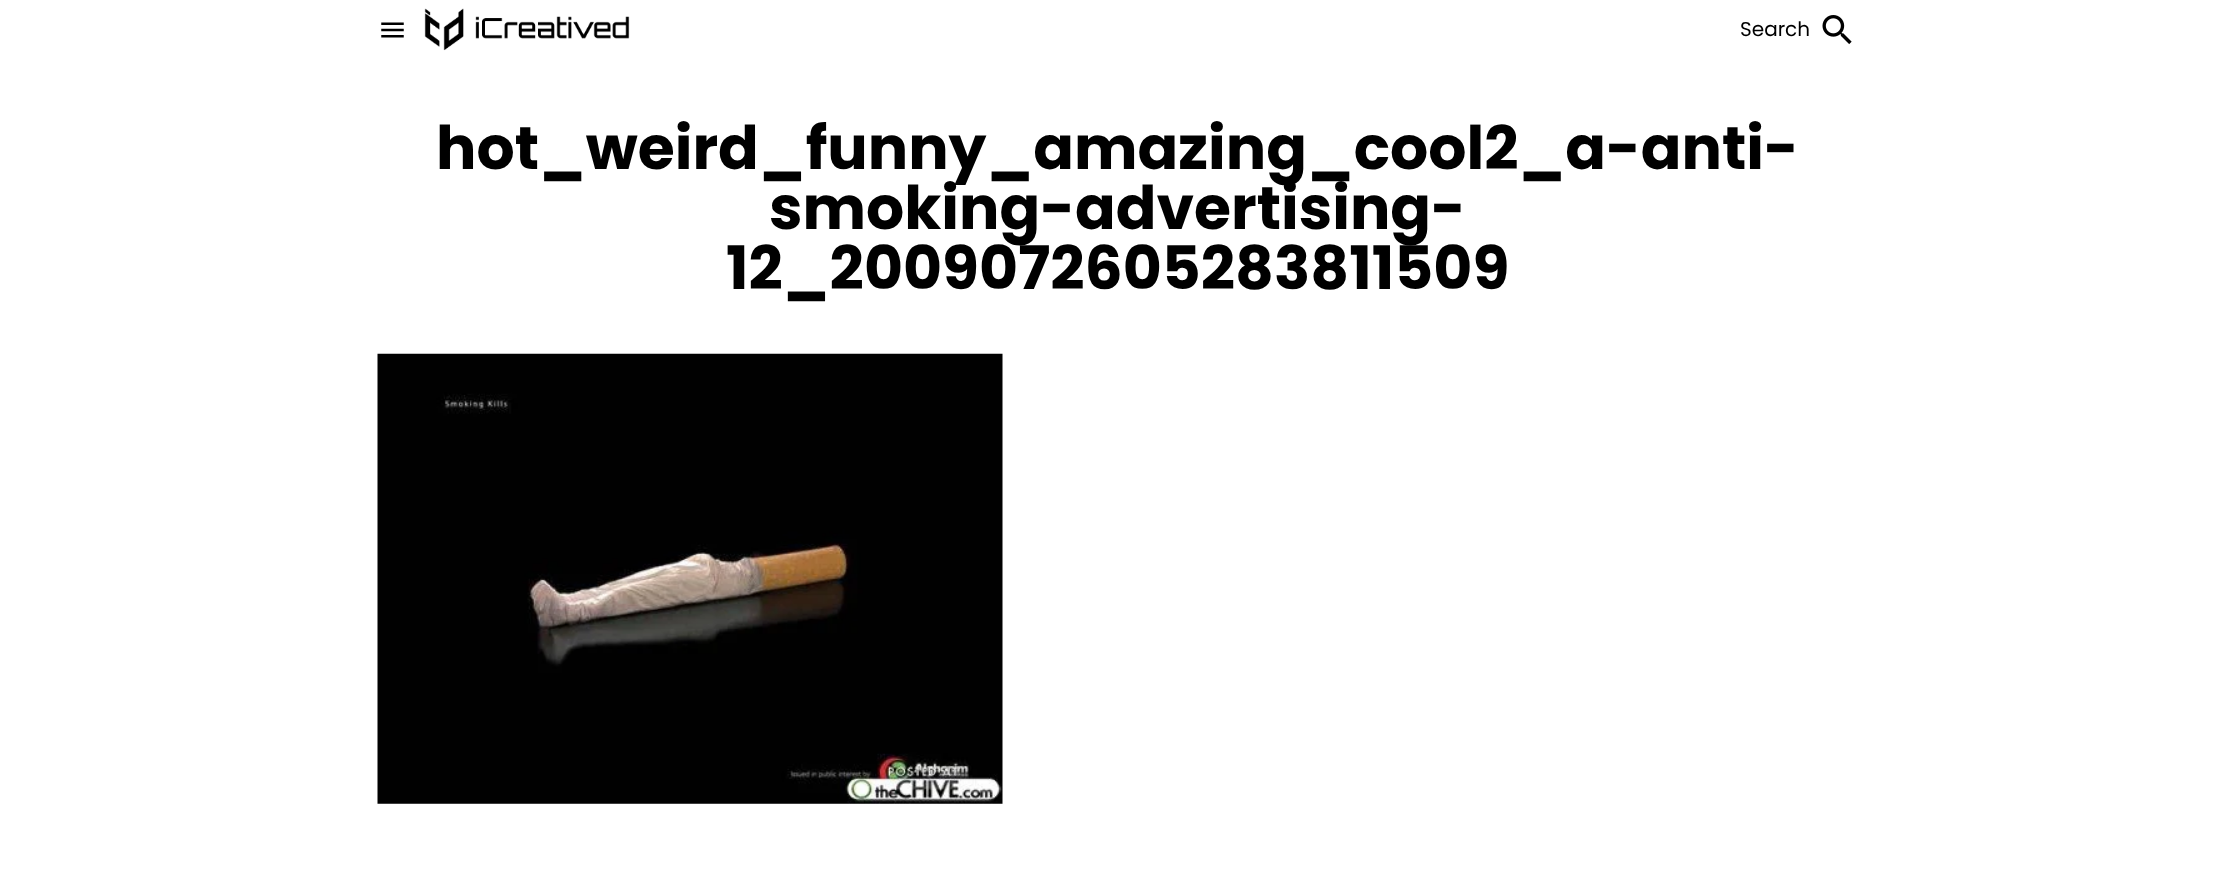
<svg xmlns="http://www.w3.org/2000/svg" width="2234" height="875">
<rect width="100%" height="100%" fill="#fff"/>
<image x="381" y="22" width="23" height="16" href="media/1.png"/>
<image x="424" y="8" width="206" height="43" href="media/2.png"/>
<text x="1740" y="36" style="font-family:Poppins;font-size:20px;fill:#000">Search</text>
<image x="1822" y="15" width="30" height="30" href="media/3.png"/>
<text x="436" y="169" style="font-family:Poppins;font-size:60px;font-weight:bold;fill:#000">hot_weird_funny_amazing_cool2_a-anti-</text>
<text x="769" y="229" style="font-family:Poppins;font-size:60px;font-weight:bold;fill:#000">smoking-advertising-</text>
<text x="726" y="289" style="font-family:Poppins;font-size:60px;font-weight:bold;fill:#000">12_2009072605283811509</text>
<image x="377" y="353" width="626" height="451" href="media/4.png"/>
</svg>
